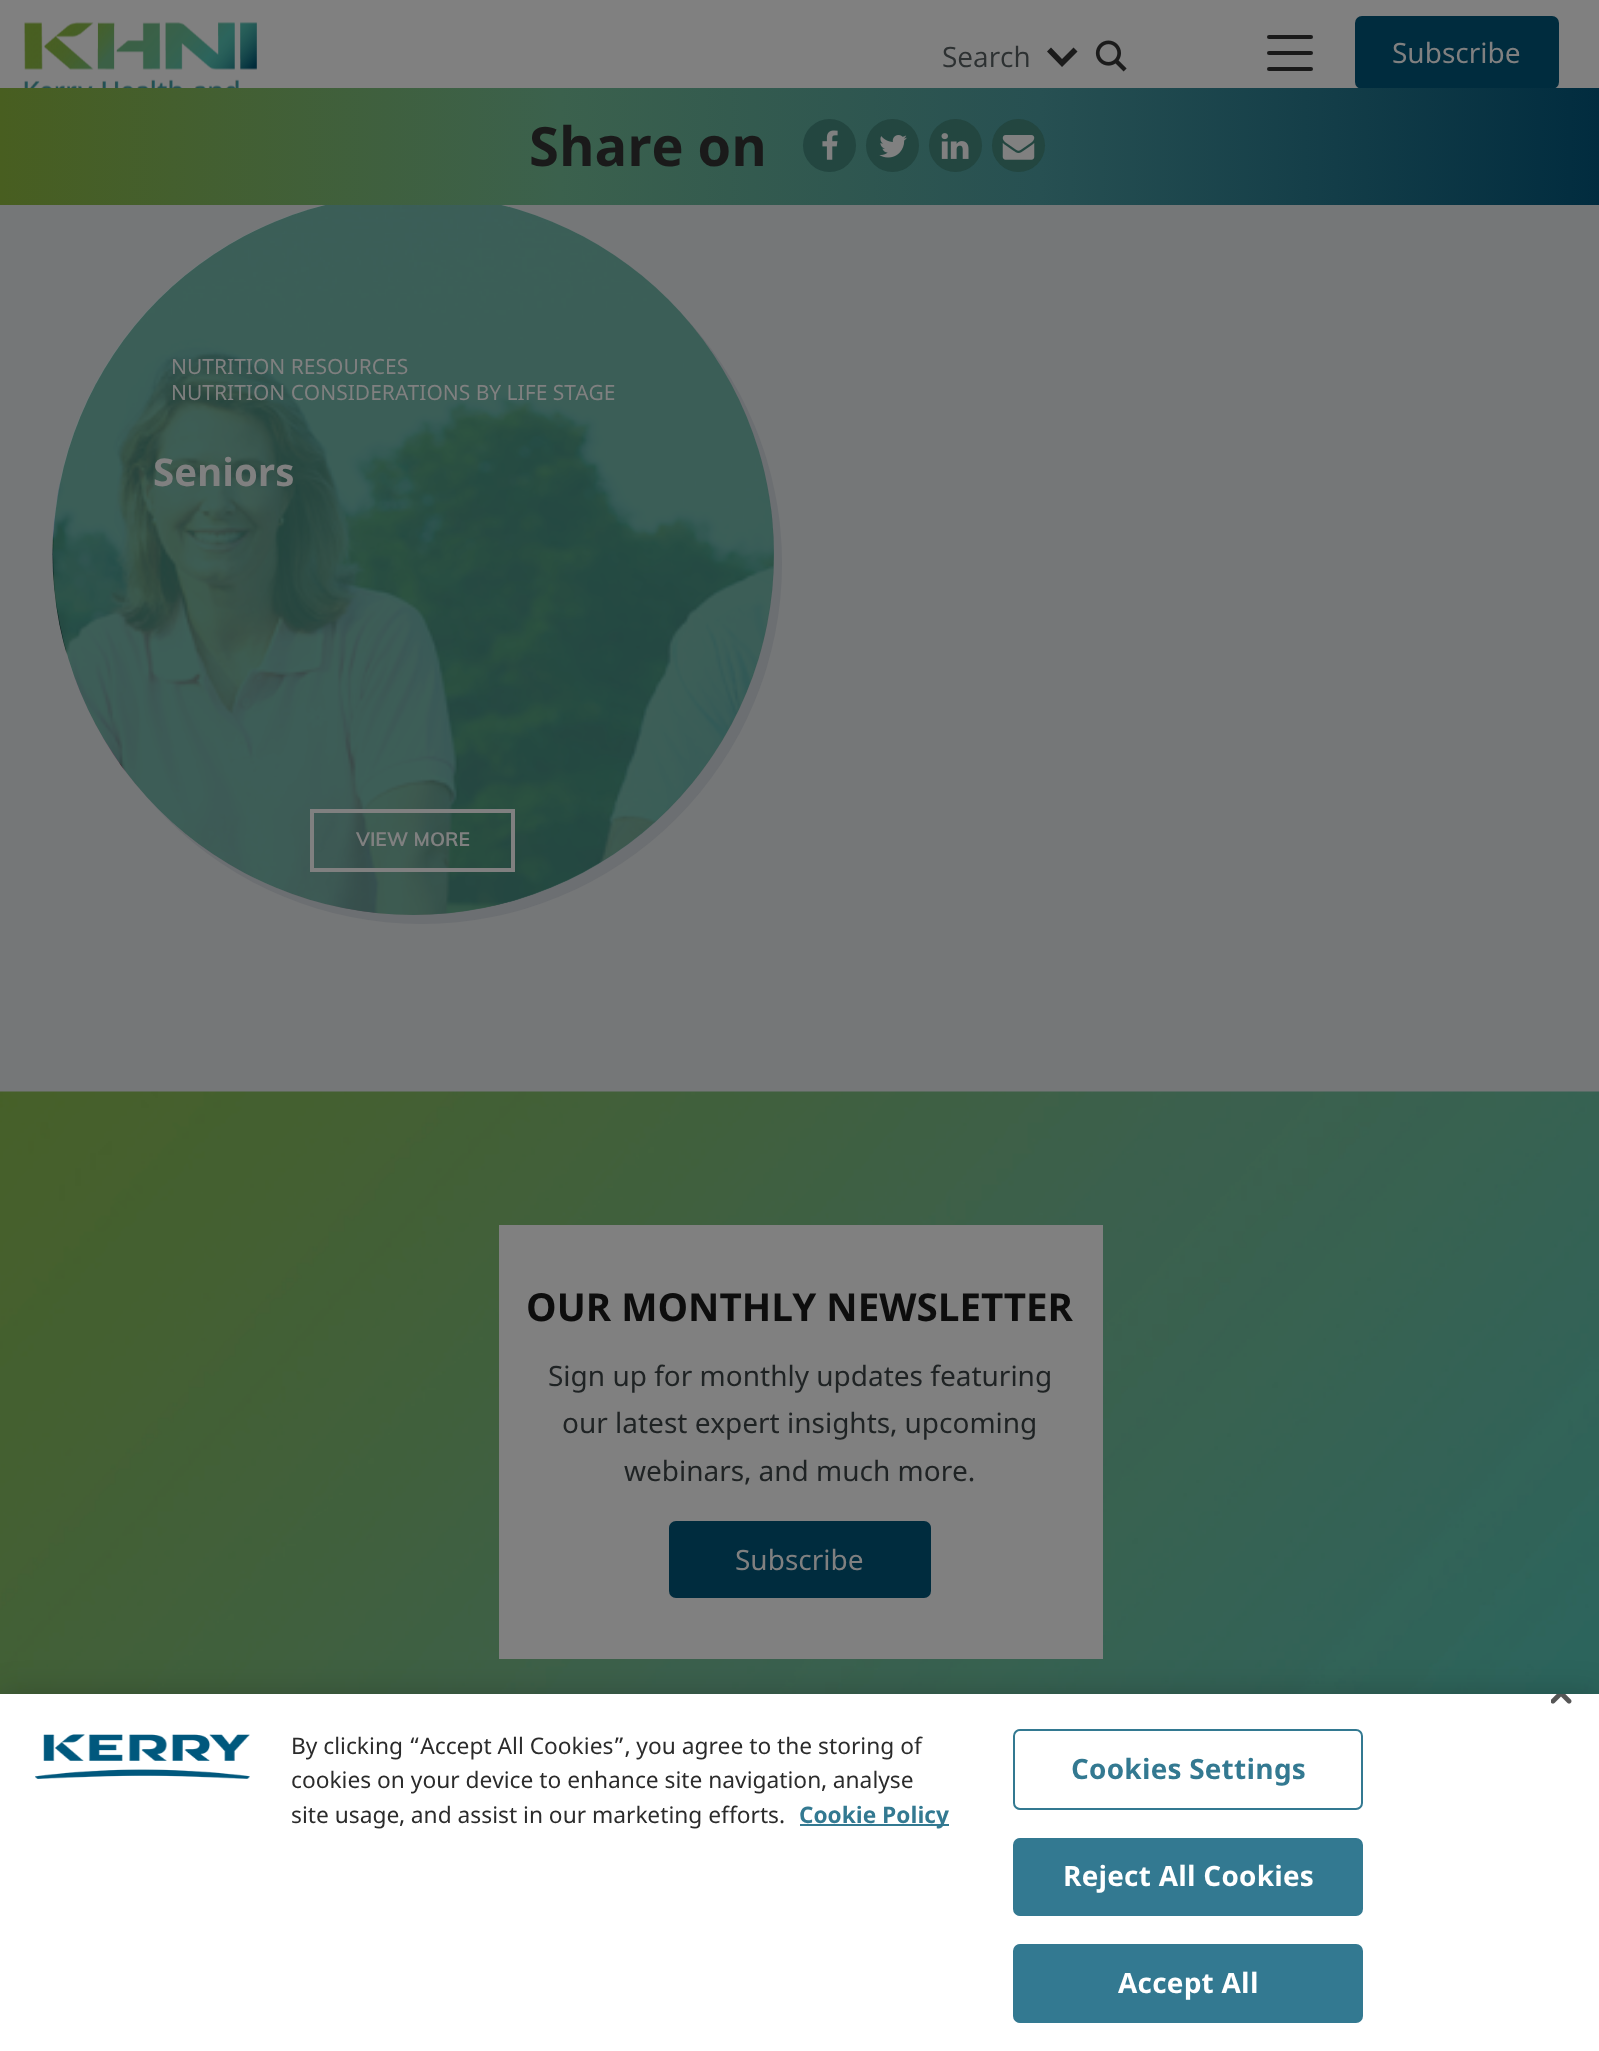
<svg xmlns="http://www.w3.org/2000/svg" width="1599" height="2051">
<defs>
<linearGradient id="g1" gradientUnits="userSpaceOnUse" x1="0" y1="146" x2="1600" y2="146"><stop offset="0" stop-color="#485e20"/><stop offset="0.35" stop-color="#3b614d"/><stop offset="0.65" stop-color="#275052"/><stop offset="1" stop-color="#012c3f"/></linearGradient>
</defs>
<rect width="100%" height="100%" fill="#757778"/>
<rect width="1599" height="88" fill="#808080"/>
<image x="24" y="22" width="245" height="66" href="media/1.png"/>
<text x="942" y="67" style="font-family:Open Sans;font-size:28px;fill:#2d3132">Search</text>
<path d="M1073.5 47.5l4 4l-15.5 15.5l-15-15.5l4-4l11 11.5z" fill="#1b1b1b"/>
<image x="1095" y="40" width="32" height="32" href="media/2.png"/>
<rect x="1267" y="35" width="46" height="4" rx="2" fill="#1a1a1a"/>
<rect x="1267" y="51" width="46" height="4" rx="2" fill="#1a1a1a"/>
<rect x="1267" y="67" width="46" height="4" rx="2" fill="#1a1a1a"/>
<rect x="1355" y="16" width="204" height="73" rx="7" fill="#002c3e"/>
<text x="1392" y="63" style="font-family:Noto Sans;font-size:28px;fill:#808080">Subscribe</text>
<circle cx="421.5" cy="563.5" r="360.5" fill="#6c6f72"/>
<image x="52" y="205" width="722" height="710" href="media/7.png"/>
<circle cx="413.5" cy="554.5" r="360.5" fill="#2d564ecc"/>
<rect y="88" width="1599" height="117" fill="url(#g1)"/>
<text x="529" y="166" style="font-family:Noto Sans;font-size:54.25px;font-weight:bold;fill:#1a1a1a">Share on</text>
<circle cx="829.5" cy="145.5" r="26.5" fill="#234640"/>
<image x="822" y="130" width="16" height="30" href="media/3.png"/>
<circle cx="892.5" cy="145.5" r="26.5" fill="#234640"/>
<image x="879" y="135" width="28" height="23" href="media/4.png"/>
<circle cx="955.5" cy="145.5" r="26.5" fill="#234640"/>
<image x="941" y="133" width="28" height="26" href="media/5.png"/>
<circle cx="1018.5" cy="145.5" r="26.5" fill="#234640"/>
<image x="1002" y="135" width="33" height="25" href="media/6.png"/>
<text x="171" y="374" style="font-family:Noto Sans;font-size:21px;fill:#808080">NUTRITION RESOURCES</text>
<text x="171" y="400" style="font-family:Noto Sans;font-size:21px;fill:#808080">NUTRITION CONSIDERATIONS BY LIFE STAGE</text>
<text x="153" y="486" style="font-family:Noto Sans;font-size:38.5px;font-weight:bold;fill:#808080">Seniors</text>
<rect x="312" y="811" width="201" height="59" fill="none" stroke="#808080" stroke-width="4"/>
<text x="356" y="846" style="font-family:Muli;font-size:19.25px;font-weight:bold;fill:#808080">VIEW MORE</text>
<image x="0" y="1091" width="1599" height="603" href="media/8.png"/>
<rect x="499" y="1225" width="604" height="434" fill="#808080"/>
<text x="526" y="1321" style="font-family:Noto Sans;font-size:38.5px;font-weight:bold;fill:#0d0d0d">OUR MONTHLY NEWSLETTER</text>
<text x="548" y="1386" style="font-family:Noto Sans;font-size:28px;fill:#1f2324">Sign up for monthly updates featuring</text>
<text x="562" y="1433" style="font-family:Noto Sans;font-size:28px;fill:#1f2324">our latest expert insights, upcoming</text>
<text x="624" y="1481" style="font-family:Noto Sans;font-size:28px;fill:#1f2324">webinars, and much more.</text>
<rect x="669" y="1521" width="262" height="77" rx="7" fill="#002c3e"/>
<text x="735" y="1570" style="font-family:Noto Sans;font-size:28px;fill:#808080">Subscribe</text>
<rect y="1694" width="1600" height="357" fill="#00000033" filter="blur(16px)"/>
<rect y="1694" width="1599" height="357" fill="#fff"/>
<image x="1551" y="1694" width="21" height="10" href="media/9.png"/>
<image x="35" y="1734" width="215" height="45" href="media/10.png"/>
<text x="291" y="1754" style="font-family:Noto Sans;font-size:22.75px;fill:#2b2b2b">By clicking “Accept All Cookies”, you agree to the storing of</text>
<text x="291" y="1788" style="font-family:Noto Sans;font-size:22.75px;fill:#2b2b2b">cookies on your device to enhance site navigation, analyse</text>
<text x="291" y="1823" style="font-family:Noto Sans;font-size:22.75px;fill:#2b2b2b">site usage, and assist in our marketing efforts.</text>
<rect x="800" y="1824" width="149" height="2" fill="#337991"/>
<text x="799" y="1823" style="font-family:Noto Sans;font-size:22.75px;font-weight:bold;fill:#337991">Cookie Policy</text>
<rect x="1014" y="1730" width="348" height="79" rx="6" fill="none" stroke="#337991" stroke-width="2"/>
<text x="1071" y="1779" style="font-family:Noto Sans;font-size:28px;font-weight:bold;letter-spacing:0.25px;fill:#337991">Cookies Settings</text>
<rect x="1014" y="1839" width="348" height="76" rx="6" fill="#337991" stroke="#337991" stroke-width="2"/>
<text x="1063" y="1886" style="font-family:Noto Sans;font-size:28px;font-weight:bold;letter-spacing:0.25px;fill:#fff">Reject All Cookies</text>
<rect x="1014" y="1945" width="348" height="77" rx="6" fill="#337991" stroke="#337991" stroke-width="2"/>
<text x="1118" y="1993" style="font-family:Noto Sans;font-size:28px;font-weight:bold;letter-spacing:0.25px;fill:#fff">Accept All</text>
</svg>
